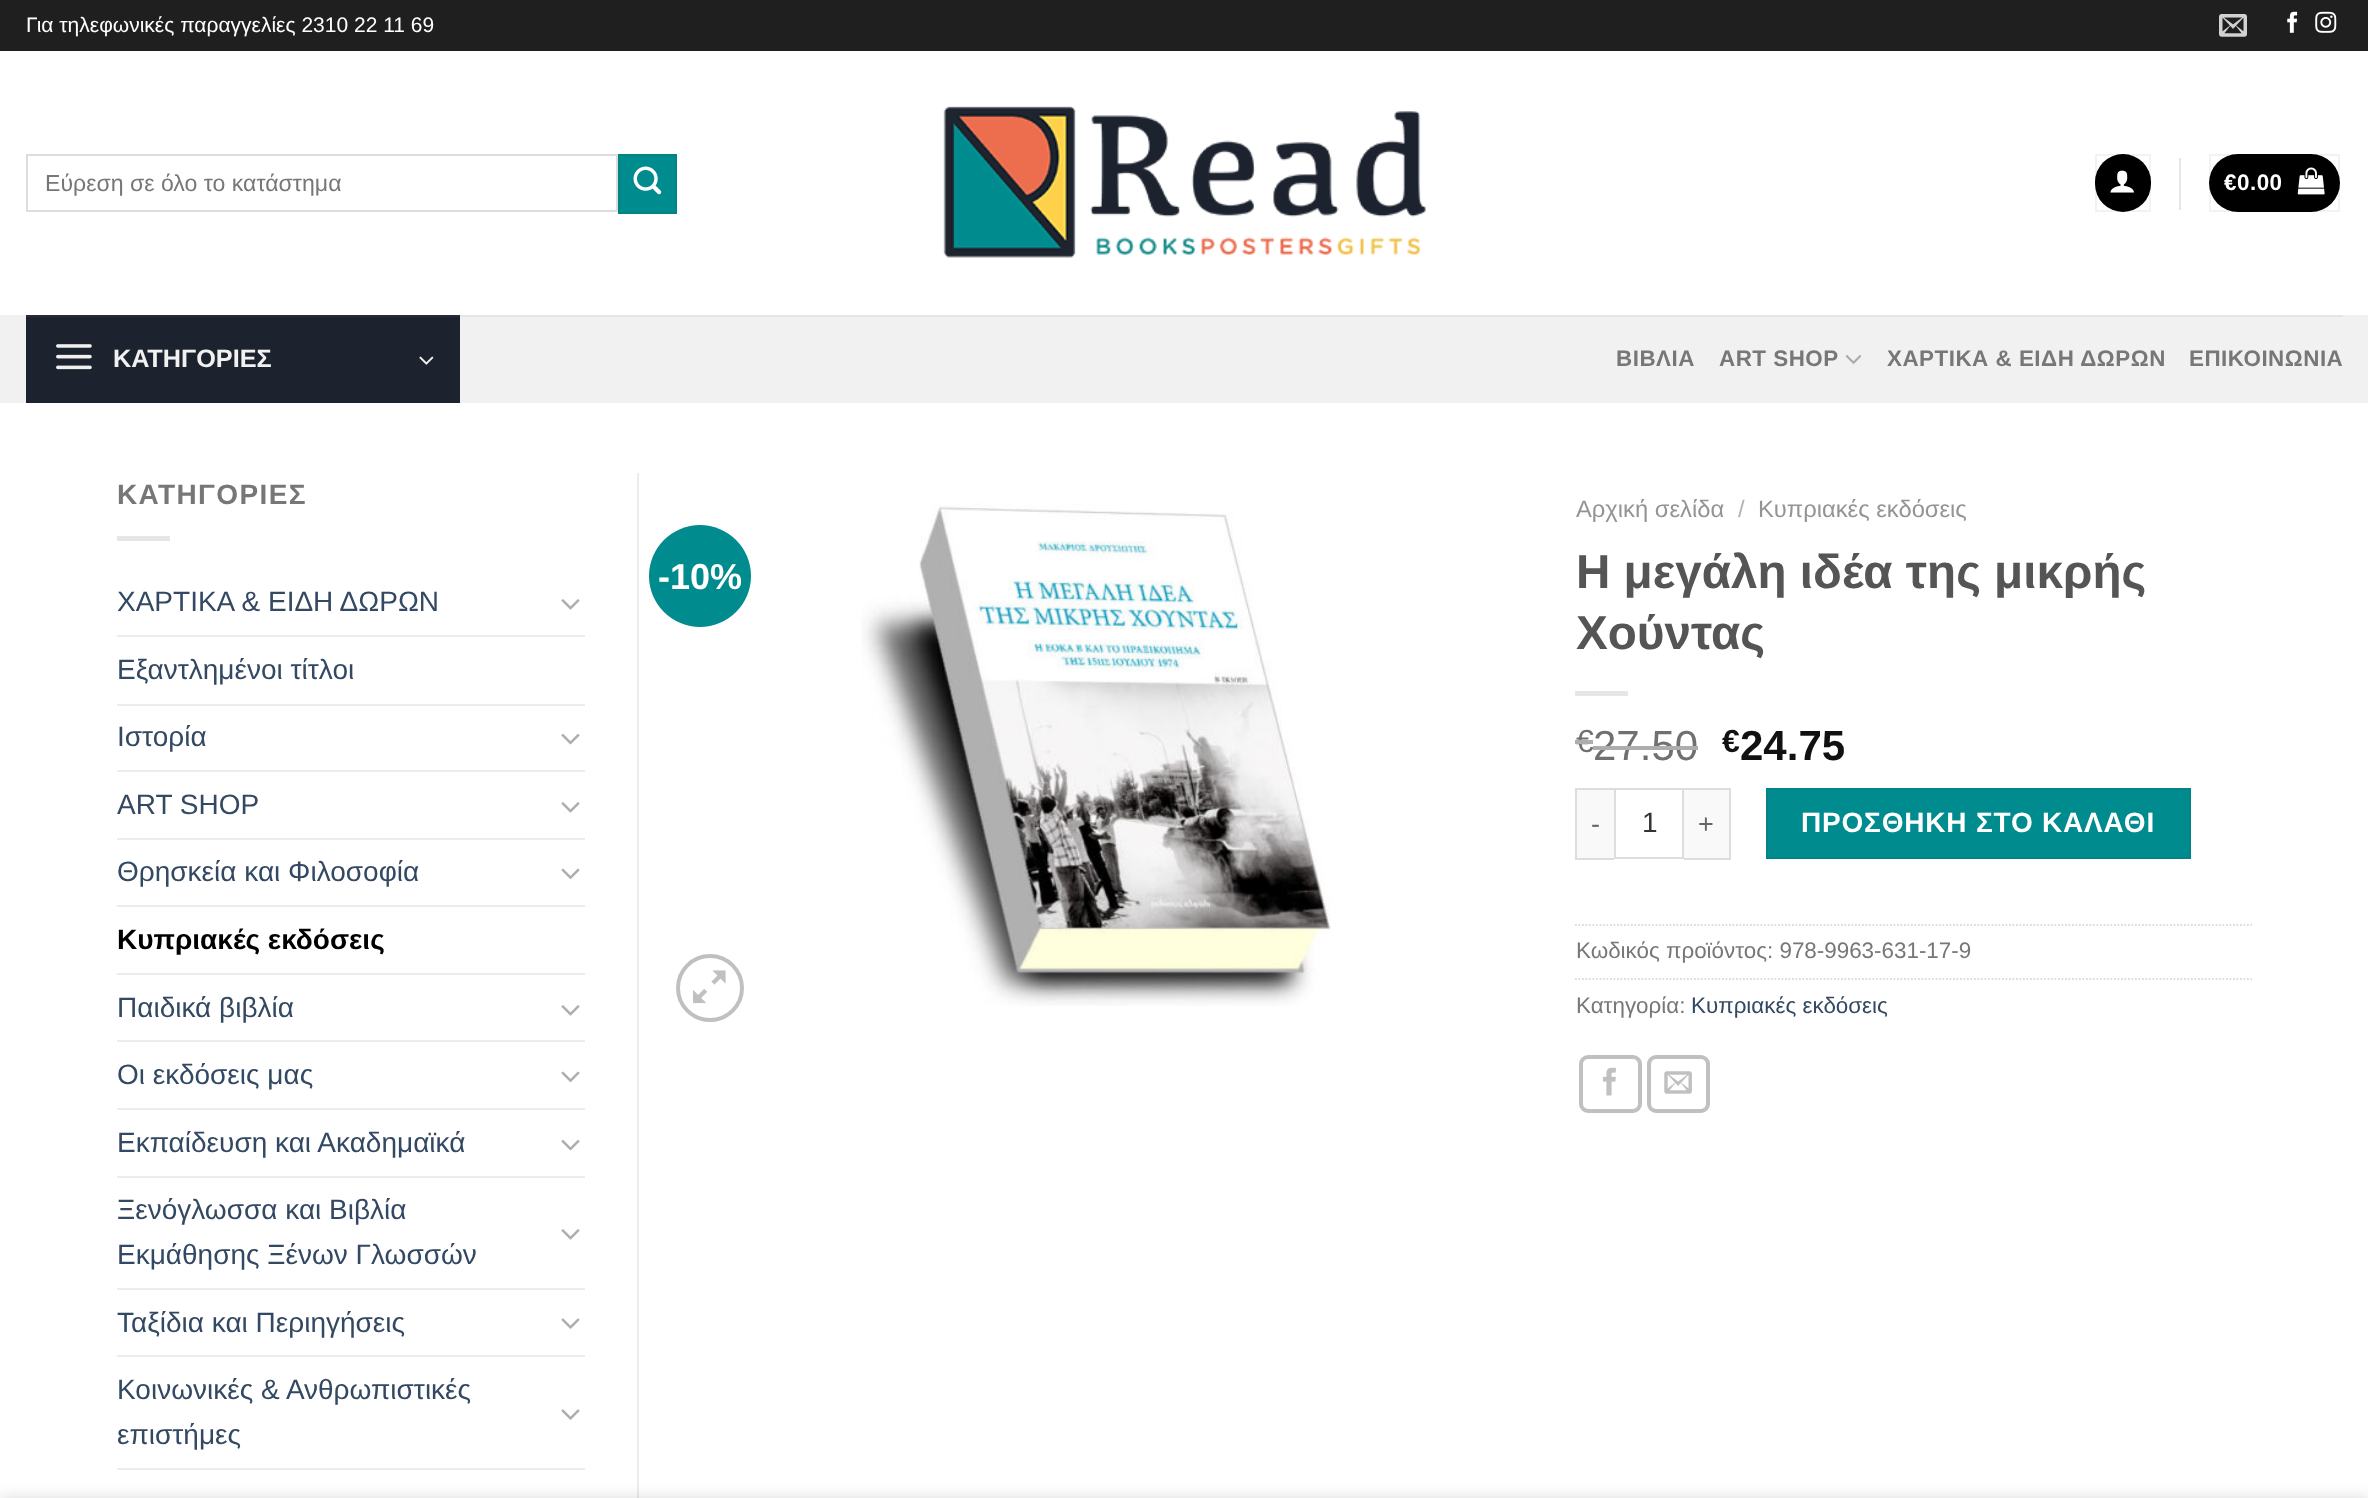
<svg xmlns="http://www.w3.org/2000/svg" width="2368" height="1498">
<rect width="100%" height="100%" fill="#fff"/>
<rect width="2368" height="51" fill="#1f1f1f"/>
<text x="26" y="32" style="font-family:Liberation Sans;font-size:21px;fill:#fff">Για τηλεφωνικές παραγγελίες 2310 22 11 69</text>
<image x="2219" y="14" width="28" height="23" href="media/1.png"/>
<image x="2287" y="11" width="11" height="22" href="media/2.png"/>
<image x="2315" y="11" width="22" height="22" href="media/3.png"/>
<rect x="27" y="155" width="590" height="56" fill="none" stroke="#ddd" stroke-width="2"/>
<text x="45" y="191" style="font-family:Liberation Sans;font-size:23.1px;fill:#777">Εύρεση σε όλο το κατάστημα</text>
<rect x="619" y="155" width="57" height="58" fill="#008b8e" stroke="#008487" stroke-width="2"/>
<image x="633" y="166" width="29" height="29" href="media/4.png"/>
<image x="943" y="106" width="483" height="152" href="media/5.png"/>
<rect x="2095" y="154" width="56" height="58" rx="28" fill="#000"/>
<rect x="2096" y="155" width="54" height="56" fill="none" stroke="#0000000d" stroke-width="2"/>
<image x="2110" y="170" width="24" height="23" href="media/6.png"/>
<rect x="2179" y="158" width="2" height="52" fill="#e6e6e6"/>
<rect x="2209" y="154" width="131" height="58" rx="29" fill="#000"/>
<rect x="2210" y="155" width="129" height="56" fill="none" stroke="#0000000d" stroke-width="2"/>
<text x="2224" y="190" style="font-family:Liberation Sans;font-size:22.4px;font-weight:bold;letter-spacing:0.5px;fill:#fff">€0.00</text>
<image x="2297" y="167" width="28" height="28" href="media/7.png"/>
<rect y="315" width="2368" height="88" fill="#f1f1f1"/>
<rect x="460" y="315" width="1883" height="2" fill="#e5e5e5"/>
<rect x="26" y="317" width="434" height="86" fill="#1d232e"/>
<rect x="26" y="315" width="434" height="2" fill="#262b35"/>
<image x="56" y="344" width="36" height="26" href="media/8.png"/>
<text x="113" y="367" style="font-family:Liberation Sans;font-size:25.25px;font-weight:bold;fill:#f1f1f1">ΚΑΤΗΓΟΡΙΕΣ</text>
<image x="419" y="356" width="15" height="9" href="media/9.png"/>
<text x="1616" y="366" style="font-family:Liberation Sans;font-size:22.4px;font-weight:bold;letter-spacing:0.5px;fill:#777">ΒΙΒΛΙΑ</text>
<text x="1719" y="366" style="font-family:Liberation Sans;font-size:22.4px;font-weight:bold;letter-spacing:0.5px;fill:#777">ART SHOP</text>
<image x="1845" y="355" width="17" height="9" href="media/10.png"/>
<text x="1887" y="366" style="font-family:Liberation Sans;font-size:22.4px;font-weight:bold;letter-spacing:0.5px;fill:#777">ΧΑΡΤΙΚΑ &amp; ΕΙΔΗ ΔΩΡΩΝ</text>
<text x="2189" y="366" style="font-family:Liberation Sans;font-size:22.4px;font-weight:bold;letter-spacing:0.5px;fill:#777">ΕΠΙΚΟΙΝΩΝΙΑ</text>
<rect x="637" y="473" width="2" height="1025" fill="#ececec"/>
<text x="117" y="504" style="font-family:Liberation Sans;font-size:28px;font-weight:bold;letter-spacing:1.4px;fill:#777">ΚΑΤΗΓΟΡΙΕΣ</text>
<rect x="117" y="536" width="53" height="5" fill="#e6e6e6"/>
<text x="117" y="611" style="font-family:Liberation Sans;font-size:28px;fill:#334862">ΧΑΡΤΙΚΑ &amp; ΕΙΔΗ ΔΩΡΩΝ</text>
<image x="561" y="599" width="19" height="11" href="media/11.png"/>
<rect x="117" y="635" width="468" height="2" fill="#ececec"/>
<text x="117" y="679" style="font-family:Liberation Sans;font-size:28px;fill:#334862">Εξαντλημένοι τίτλοι</text>
<rect x="117" y="704" width="468" height="2" fill="#ececec"/>
<text x="117" y="746" style="font-family:Liberation Sans;font-size:28px;fill:#334862">Ιστορία</text>
<image x="561" y="733" width="19" height="12" href="media/12.png"/>
<rect x="117" y="770" width="468" height="2" fill="#ececec"/>
<text x="117" y="814" style="font-family:Liberation Sans;font-size:28px;fill:#334862">ART SHOP</text>
<image x="561" y="802" width="19" height="11" href="media/11.png"/>
<rect x="117" y="838" width="468" height="2" fill="#ececec"/>
<text x="117" y="881" style="font-family:Liberation Sans;font-size:28px;fill:#334862">Θρησκεία και Φιλοσοφία</text>
<image x="561" y="868" width="19" height="12" href="media/13.png"/>
<rect x="117" y="905" width="468" height="2" fill="#ececec"/>
<text x="117" y="949" style="font-family:Liberation Sans;font-size:28px;font-weight:bold;fill:#000">Κυπριακές εκδόσεις</text>
<rect x="117" y="973" width="468" height="2" fill="#ececec"/>
<text x="117" y="1017" style="font-family:Liberation Sans;font-size:28px;fill:#334862">Παιδικά βιβλία</text>
<image x="561" y="1005" width="19" height="11" href="media/11.png"/>
<rect x="117" y="1040" width="468" height="2" fill="#ececec"/>
<text x="117" y="1084" style="font-family:Liberation Sans;font-size:28px;fill:#334862">Οι εκδόσεις μας</text>
<image x="561" y="1071" width="19" height="12" href="media/13.png"/>
<rect x="117" y="1108" width="468" height="2" fill="#ececec"/>
<text x="117" y="1152" style="font-family:Liberation Sans;font-size:28px;fill:#334862">Εκπαίδευση και Ακαδημαϊκά</text>
<image x="561" y="1139" width="19" height="12" href="media/12.png"/>
<rect x="117" y="1176" width="468" height="2" fill="#ececec"/>
<text x="117" y="1219" style="font-family:Liberation Sans;font-size:28px;fill:#334862">Ξενόγλωσσα και Βιβλία</text>
<text x="117" y="1264" style="font-family:Liberation Sans;font-size:28px;fill:#334862">Εκμάθησης Ξένων Γλωσσών</text>
<image x="561" y="1229" width="19" height="11" href="media/11.png"/>
<rect x="117" y="1288" width="468" height="2" fill="#ececec"/>
<text x="117" y="1332" style="font-family:Liberation Sans;font-size:28px;fill:#334862">Ταξίδια και Περιηγήσεις</text>
<image x="561" y="1318" width="19" height="11" href="media/14.png"/>
<rect x="117" y="1355" width="468" height="2" fill="#ececec"/>
<text x="117" y="1399" style="font-family:Liberation Sans;font-size:28px;fill:#334862">Κοινωνικές &amp; Ανθρωπιστικές</text>
<text x="117" y="1444" style="font-family:Liberation Sans;font-size:28px;fill:#334862">επιστήμες</text>
<image x="561" y="1409" width="19" height="11" href="media/14.png"/>
<rect x="117" y="1468" width="468" height="2" fill="#ececec"/>
<circle cx="700" cy="576" r="51" fill="#008b8e"/>
<text x="658" y="589" style="font-family:Liberation Sans;font-size:36px;font-weight:bold;fill:#fff">-10%</text>
<image x="861" y="503" width="470" height="503" href="media/15.png"/>
<circle cx="710" cy="988" r="32" fill="none" stroke="#c0c0c0" stroke-width="4"/>
<image x="693" y="970" width="33" height="34" href="media/16.png"/>
<text x="1576" y="517" style="font-family:Liberation Sans;font-size:23.75px;fill:#949494">Αρχική σελίδα</text>
<text x="1738" y="517" style="font-family:Liberation Sans;font-size:23.75px;fill:#b2b2b2">/</text>
<text x="1758" y="517" style="font-family:Liberation Sans;font-size:23.75px;fill:#949494">Κυπριακές εκδόσεις</text>
<text x="1576" y="588" style="font-family:Liberation Sans;font-size:47.6px;font-weight:bold;fill:#555">Η μεγάλη ιδέα της μικρής</text>
<text x="1576" y="649" style="font-family:Liberation Sans;font-size:47.6px;font-weight:bold;fill:#555">Χούντας</text>
<rect x="1575" y="691" width="53" height="5" fill="#e6e6e6"/>
<text x="1576" y="752" style="font-family:Liberation Sans;font-size:32px;fill:#707070">€</text>
<rect x="1575" y="740" width="18" height="4" fill="#adadad"/>
<text x="1593" y="760" style="font-family:Liberation Sans;font-size:42px;fill:#707070">27.50</text>
<rect x="1593" y="746" width="105" height="4" fill="#adadad"/>
<text x="1722" y="752" style="font-family:Liberation Sans;font-size:32px;font-weight:bold;fill:#111">€</text>
<text x="1740" y="760" style="font-family:Liberation Sans;font-size:42px;font-weight:bold;fill:#111">24.75</text>
<rect x="1577" y="790" width="37" height="68" fill="#f9f9f9"/>
<rect x="1575" y="788" width="39" height="2" fill="#ddd"/>
<rect x="1575" y="858" width="39" height="2" fill="#ddd"/>
<rect x="1575" y="788" width="2" height="71" fill="#ddd"/>
<text x="1591" y="833" style="font-family:Liberation Sans;font-size:27px;letter-spacing:1px;fill:#666">-</text>
<rect x="1615" y="789" width="68" height="69" fill="none" stroke="#ddd" stroke-width="2"/>
<text x="1642" y="832" style="font-family:Liberation Sans;font-size:28px;fill:#333">1</text>
<rect x="1684" y="790" width="45" height="68" fill="#f9f9f9"/>
<rect x="1684" y="788" width="47" height="2" fill="#ddd"/>
<rect x="1729" y="788" width="2" height="71" fill="#ddd"/>
<rect x="1684" y="858" width="47" height="2" fill="#ddd"/>
<text x="1698" y="833" style="font-family:Liberation Sans;font-size:27px;letter-spacing:1px;fill:#666">+</text>
<rect x="1767" y="789" width="423" height="69" fill="#008b8e" stroke="#008487" stroke-width="2"/>
<text x="1801" y="832" style="font-family:Liberation Sans;font-size:28px;font-weight:bold;letter-spacing:0.8px;fill:#fff">ΠΡΟΣΘΗΚΗ ΣΤΟ ΚΑΛΑΘΙ</text>
<path d="M1575 925h677" fill="none" stroke="#ddd" stroke-width="1.8" stroke-dasharray="1.75 1.75"/>
<text x="1576" y="958" style="font-family:Liberation Sans;font-size:22.4px;fill:#777">Κωδικός προϊόντος: 978-9963-631-17-9</text>
<path d="M1575 979h677" fill="none" stroke="#ddd" stroke-width="1.8" stroke-dasharray="1.75 1.75"/>
<text x="1576" y="1013" style="font-family:Liberation Sans;font-size:22.4px;fill:#777">Κατηγορία:</text>
<text x="1691" y="1013" style="font-family:Liberation Sans;font-size:22.4px;fill:#334862">Κυπριακές εκδόσεις</text>
<rect x="1581" y="1057" width="59" height="54" rx="7" fill="none" stroke="#c0c0c0" stroke-width="4"/>
<image x="1602" y="1067" width="14" height="29" href="media/17.png"/>
<rect x="1649" y="1057" width="59" height="54" rx="7" fill="none" stroke="#c0c0c0" stroke-width="4"/>
<image x="1664" y="1071" width="28" height="23" href="media/18.png"/>
<rect y="1498" width="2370" height="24" fill="#00000024" filter="blur(8px)"/>
</svg>
